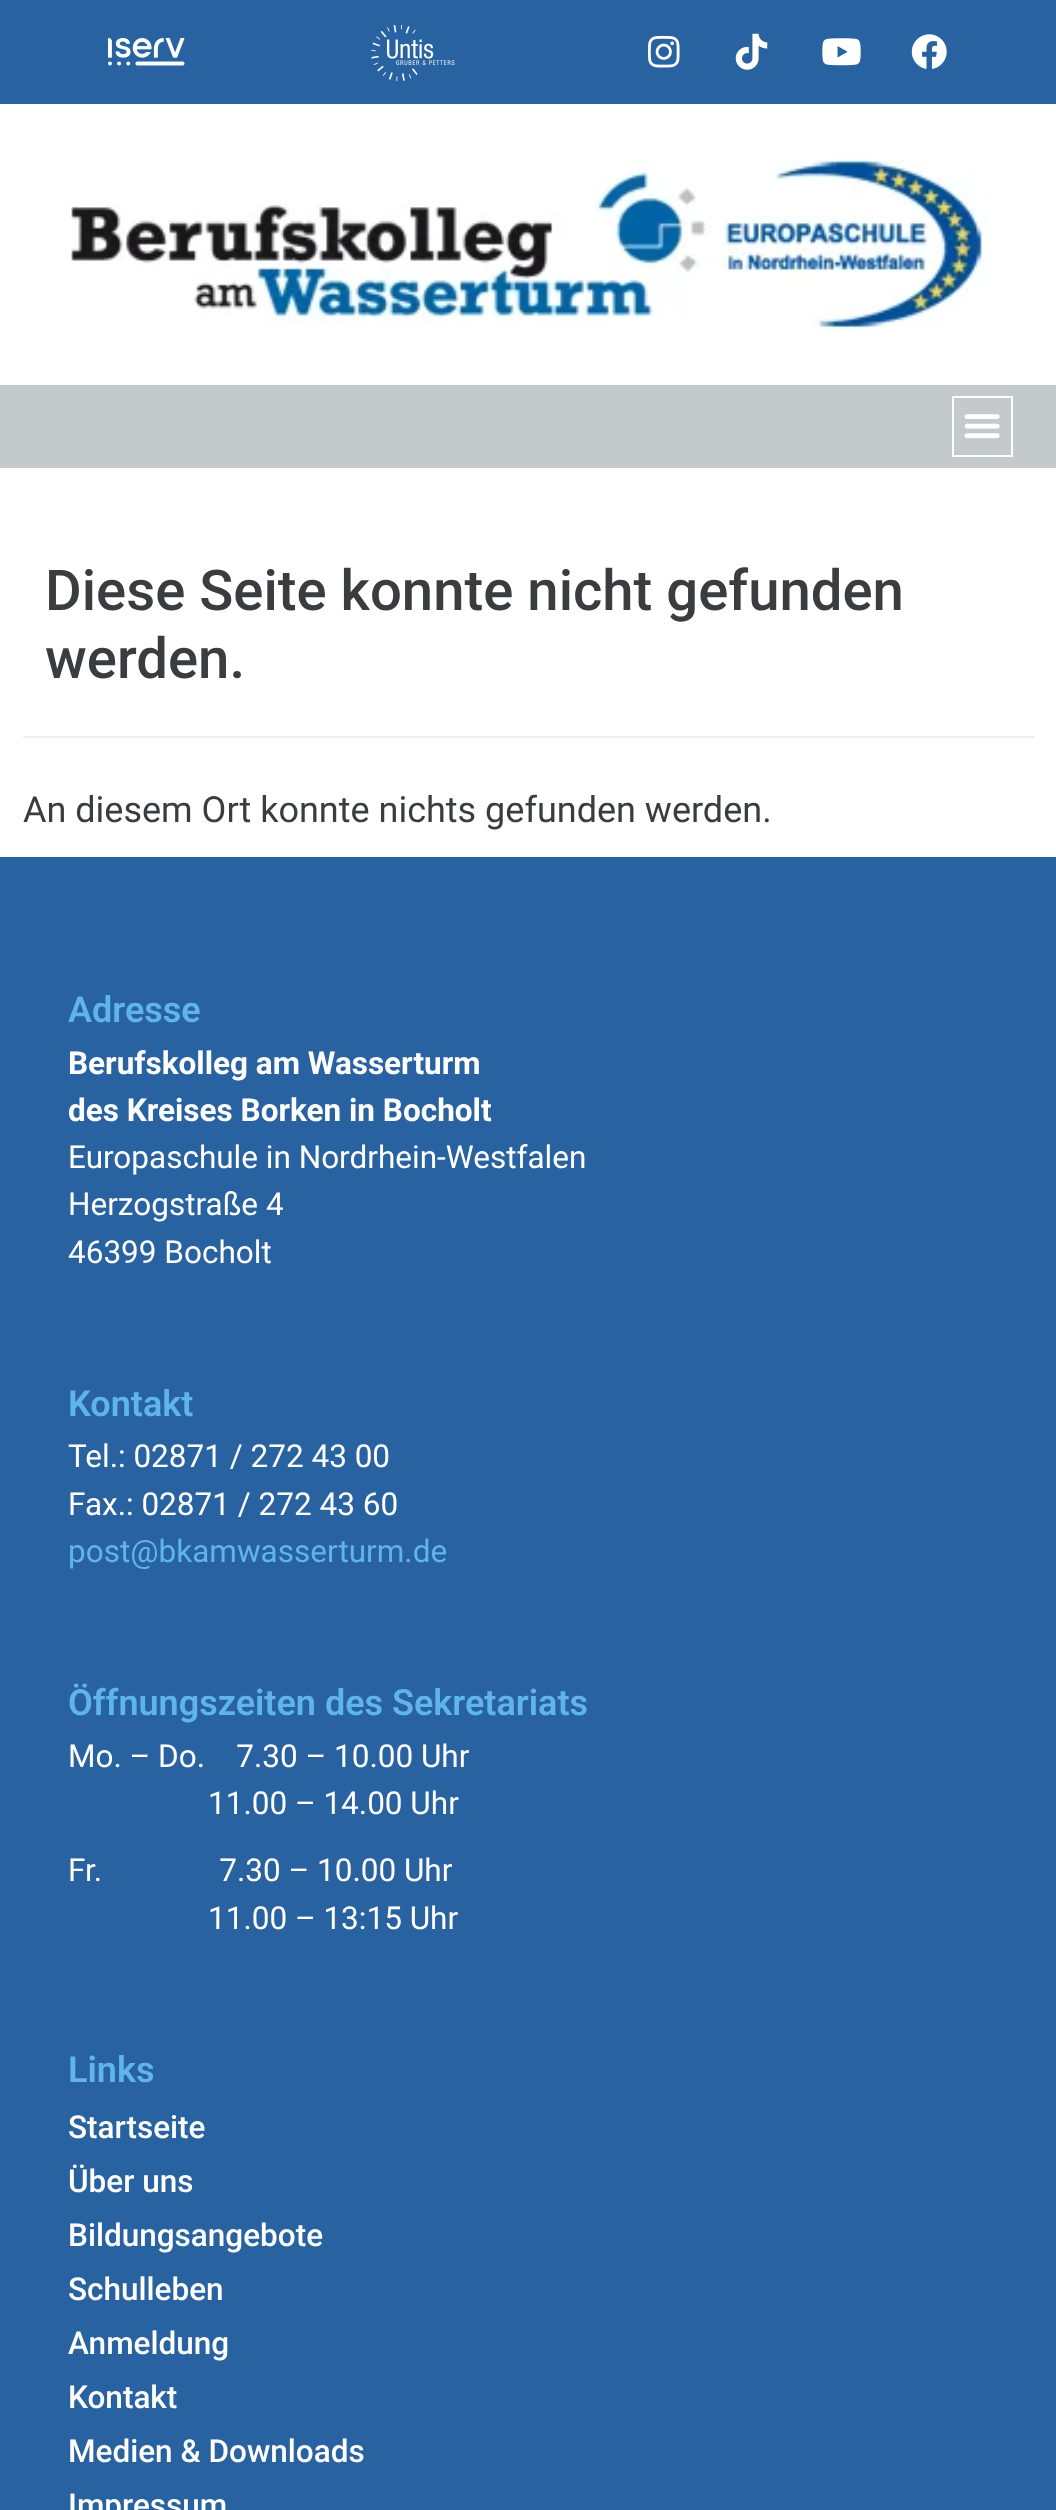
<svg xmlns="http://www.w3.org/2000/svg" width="1056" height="2510">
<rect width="100%" height="100%" fill="#fff"/>
<rect width="1056" height="104" fill="#2962a1"/>
<image x="108" y="38" width="77" height="28" href="media/1.png"/>
<image x="371" y="24" width="84" height="57" href="media/2.png"/>
<image x="648" y="35" width="32" height="33" href="media/3.png"/>
<image x="735" y="33" width="33" height="37" href="media/4.png"/>
<image x="822" y="38" width="39" height="28" href="media/5.png"/>
<image x="911" y="34" width="36" height="35" href="media/6.png"/>
<image x="71" y="159" width="919" height="170" href="media/7.png"/>
<rect y="385" width="1056" height="83" fill="#c4cacc"/>
<rect x="953" y="397" width="59" height="59" fill="none" stroke="#fff" stroke-width="2"/>
<image x="964" y="414" width="36" height="25" href="media/8.png"/>
<rect x="23" y="736" width="1012" height="2" fill="#eee"/>
<text x="45" y="610" style="font-family:Roboto;font-size:56.25px;font-weight:500;fill:#3a3c40">Diese Seite konnte nicht gefunden</text>
<text x="45" y="678" style="font-family:Roboto;font-size:56.25px;font-weight:500;fill:#3a3c40">werden.</text>
<text x="23" y="822" style="font-family:Roboto;font-size:36px;fill:#3a3c40">An diesem Ort konnte nichts gefunden werden.</text>
<rect y="857" width="1056" height="1653" fill="#2962a1"/>
<text x="68" y="1022" style="font-family:Roboto;font-size:36px;font-weight:600;fill:#5fb5e9">Adresse</text>
<text x="68" y="1074" style="font-family:Roboto;font-size:31.5px;font-weight:bold;fill:#fff">Berufskolleg am Wasserturm</text>
<text x="68" y="1121" style="font-family:Roboto;font-size:31.5px;font-weight:bold;fill:#fff">des Kreises Borken in Bocholt</text>
<text x="68" y="1168" style="font-family:Roboto;font-size:31.5px;fill:#fff">Europaschule in Nordrhein-Westfalen</text>
<text x="68" y="1215" style="font-family:Roboto;font-size:31.5px;fill:#fff">Herzogstraße 4</text>
<text x="68" y="1263" style="font-family:Roboto;font-size:31.5px;fill:#fff">46399 Bocholt</text>
<text x="68" y="1416" style="font-family:Roboto;font-size:36px;font-weight:600;fill:#5fb5e9">Kontakt</text>
<text x="68" y="1467" style="font-family:Roboto;font-size:31.5px;fill:#fff">Tel.: 02871 / 272 43 00</text>
<text x="68" y="1515" style="font-family:Roboto;font-size:31.5px;fill:#fff">Fax.: 02871 / 272 43 60</text>
<text x="68" y="1562" style="font-family:Roboto;font-size:31.5px;fill:#5fb5e9">post@bkamwasserturm.de</text>
<text x="68" y="1715" style="font-family:Roboto;font-size:36px;font-weight:600;fill:#5fb5e9">Öffnungszeiten des Sekretariats</text>
<text x="68" y="1767" style="font-family:Roboto;font-size:31.5px;fill:#fff" xml:space="preserve">Mo. – Do.    7.30 – 10.00 Uhr</text>
<text x="208" y="1814" style="font-family:Roboto;font-size:31.5px;fill:#fff">11.00 – 14.00 Uhr</text>
<text x="68" y="1881" style="font-family:Roboto;font-size:31.5px;fill:#fff" xml:space="preserve">Fr.               7.30 – 10.00 Uhr</text>
<text x="208" y="1929" style="font-family:Roboto;font-size:31.5px;fill:#fff">11.00 – 13:15 Uhr</text>
<text x="68" y="2082" style="font-family:Roboto;font-size:36px;font-weight:600;fill:#5fb5e9">Links</text>
<text x="68" y="2138" style="font-family:Roboto;font-size:31.5px;font-weight:500;fill:#fff">Startseite</text>
<text x="68" y="2192" style="font-family:Roboto;font-size:31.5px;font-weight:500;fill:#fff">Über uns</text>
<text x="68" y="2246" style="font-family:Roboto;font-size:31.5px;font-weight:500;fill:#fff">Bildungsangebote</text>
<text x="68" y="2300" style="font-family:Roboto;font-size:31.5px;font-weight:500;fill:#fff">Schulleben</text>
<text x="68" y="2354" style="font-family:Roboto;font-size:31.5px;font-weight:500;fill:#fff">Anmeldung</text>
<text x="68" y="2408" style="font-family:Roboto;font-size:31.5px;font-weight:500;fill:#fff">Kontakt</text>
<text x="68" y="2462" style="font-family:Roboto;font-size:31.5px;font-weight:500;fill:#fff">Medien &amp; Downloads</text>
<text x="68" y="2516" style="font-family:Roboto;font-size:31.5px;font-weight:500;fill:#fff">Impressum</text>
</svg>
